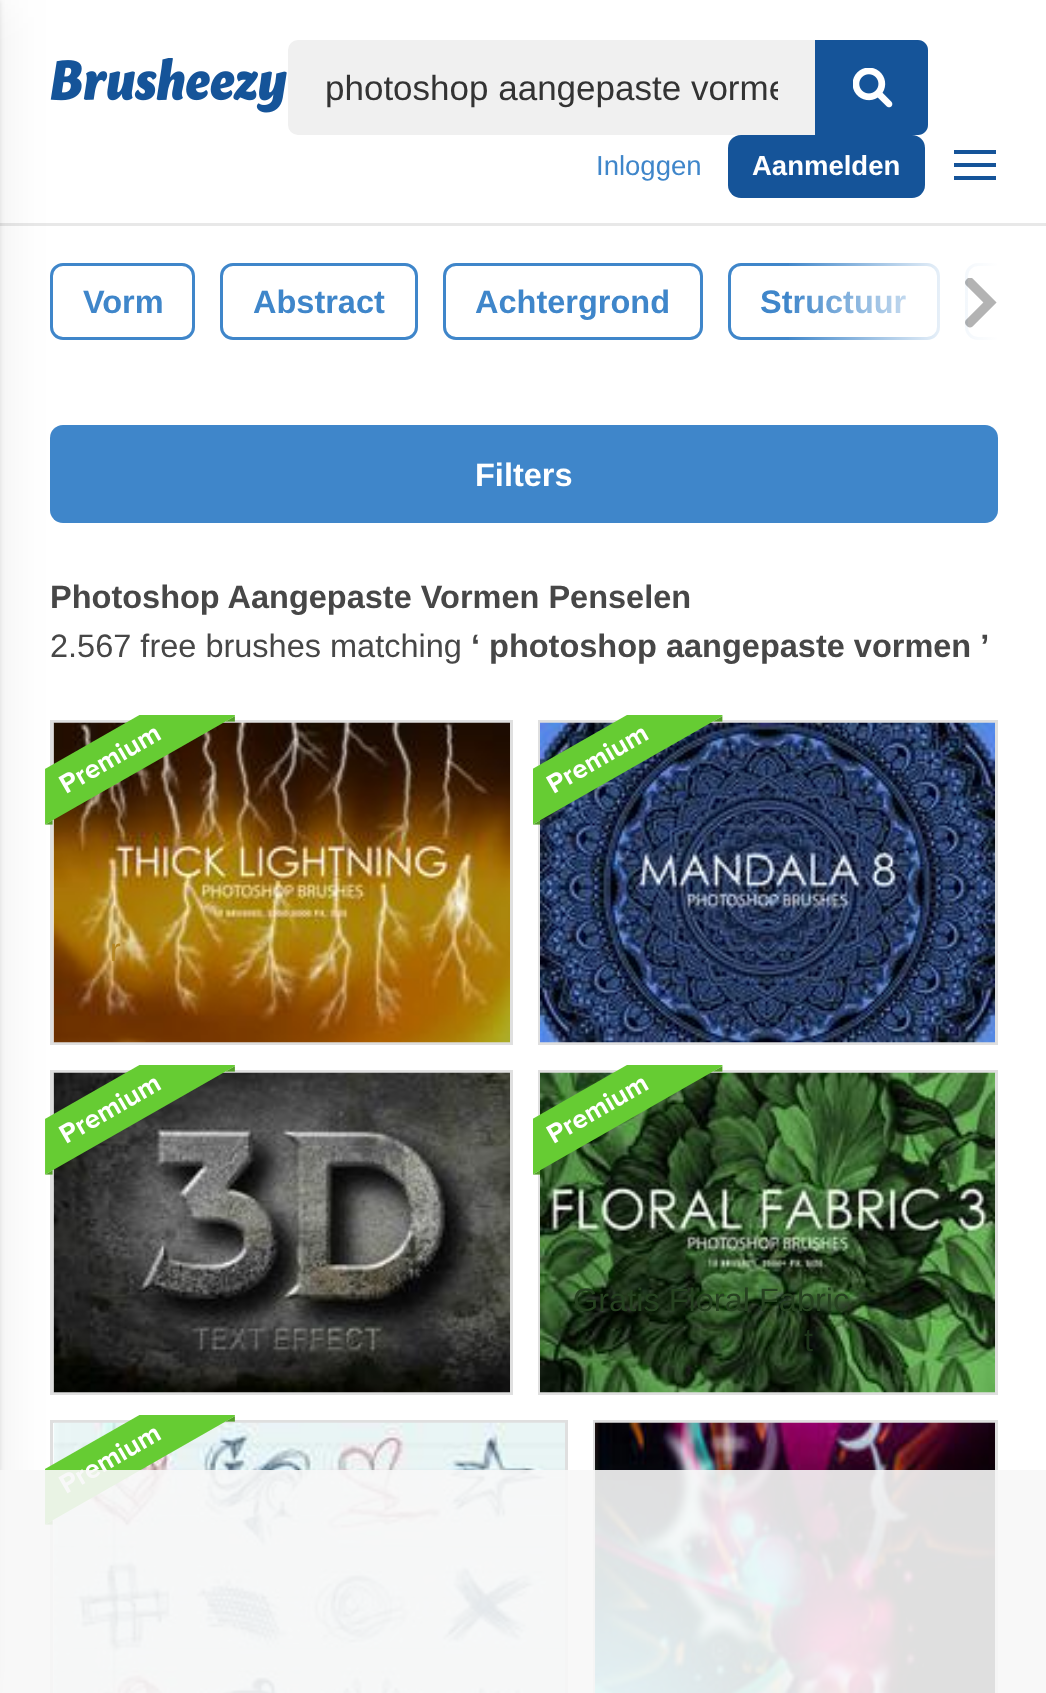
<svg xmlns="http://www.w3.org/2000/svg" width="1046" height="1693">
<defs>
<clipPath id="clip1"><rect x="325" y="68" width="453" height="40"/></clipPath>
<clipPath id="clip2"><rect x="50" y="263" width="948" height="110"/></clipPath>
<linearGradient id="g1" gradientUnits="userSpaceOnUse" x1="785" y1="301" x2="998" y2="301"><stop offset="0" stop-color="#fff" stop-opacity="0"/><stop offset="0.75" stop-color="#fff" stop-opacity="0.9"/><stop offset="1" stop-color="#fff"/></linearGradient>
</defs>
<rect width="100%" height="100%" fill="#fff"/>
<rect y="223" width="1046" height="3" fill="#e8e8e8"/>
<image x="50" y="58" width="237" height="55" href="media/1.png"/>
<rect x="288" y="40" width="640" height="95" rx="10" fill="#f0f0f0"/>
<g clip-path="url(#clip1)">
<text x="325" y="100" style="font-family:Liberation Sans;font-size:35px;fill:#333">photoshop aangepaste vorme</text>
</g>
<path d="M815 40h103c5.5 0 10 4.5 10 10v75c0 5.5-4.5 10-10 10h-103z" fill="#155499"/>
<image x="853" y="68" width="40" height="40" href="media/2.png"/>
<text x="596" y="175" style="font-family:Liberation Sans;font-size:27.5px;fill:#3f86ca">Inloggen</text>
<rect x="728" y="135" width="197" height="63" rx="13" fill="#155499"/>
<text x="752" y="175" style="font-family:Liberation Sans;font-size:27.5px;font-weight:bold;fill:#fff">Aanmelden</text>
<path d="M954 150v4h42v-4zm0 17h42v-4h-42zm0 13h42v-4h-42z" fill="#155499"/>
<rect x="729.5" y="264.5" width="209" height="74" rx="11.5" fill="none" stroke="#3f86ca" stroke-width="3"/>
<text x="760" y="313" style="font-family:Liberation Sans;font-size:32.5px;font-weight:bold;fill:#3f86ca">Structuur</text>
<g clip-path="url(#clip2)">
<rect x="966.5" y="264.5" width="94" height="74" rx="11.5" fill="none" stroke="#3f86ca" stroke-width="3"/>
</g>
<rect x="789" y="263" width="209" height="77" fill="url(#g1)"/>
<image x="965" y="278" width="32" height="50" href="media/3.png"/>
<rect x="51.5" y="264.5" width="142" height="74" rx="11.5" fill="none" stroke="#3f86ca" stroke-width="3"/>
<text x="83" y="313" style="font-family:Liberation Sans;font-size:32.5px;font-weight:bold;fill:#3f86ca">Vorm</text>
<rect x="221.5" y="264.5" width="195" height="74" rx="11.5" fill="none" stroke="#3f86ca" stroke-width="3"/>
<text x="253" y="313" style="font-family:Liberation Sans;font-size:32.5px;font-weight:bold;fill:#3f86ca">Abstract</text>
<rect x="444.5" y="264.5" width="257" height="74" rx="11.5" fill="none" stroke="#3f86ca" stroke-width="3"/>
<text x="475" y="313" style="font-family:Liberation Sans;font-size:32.5px;font-weight:bold;fill:#3f86ca">Achtergrond</text>
<rect x="50" y="425" width="948" height="98" rx="13" fill="#3f86ca"/>
<text x="475" y="486" style="font-family:Liberation Sans;font-size:32.5px;font-weight:bold;fill:#fff">Filters</text>
<rect x="51.5" y="721.5" width="460" height="322" fill="none" stroke="#dfdfdf" stroke-width="3"/>
<image x="53" y="722" width="457" height="321" href="media/5.png"/>
<image x="45" y="715" width="190" height="110" href="media/4.png"/>
<rect x="51.5" y="1071.5" width="460" height="322" fill="none" stroke="#dfdfdf" stroke-width="3"/>
<image x="53" y="1072" width="457" height="321" href="media/9.png"/>
<image x="45" y="1065" width="190" height="110" href="media/8.png"/>
<rect x="51.5" y="1421.5" width="515" height="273" fill="none" stroke="#dfdfdf" stroke-width="3"/>
<image x="53" y="1422" width="512" height="271" href="media/13.png"/>
<image x="45" y="1415" width="190" height="110" href="media/12.png"/>
<rect x="-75" width="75" height="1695" fill="#00000014" filter="blur(25px)"/>
<rect x="-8" width="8" height="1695" fill="#0000001a" filter="blur(2.5px)"/>
<text x="50" y="608" style="font-family:Liberation Sans;font-size:32.5px;font-weight:bold;fill:#474747">Photoshop Aangepaste Vormen Penselen</text>
<text x="50" y="657" style="font-family:Liberation Sans;font-size:32.5px;fill:#474747">2.567 free brushes matching</text>
<text x="471" y="657" style="font-family:Liberation Sans;font-size:32.5px;font-weight:bold;fill:#474747">‘ photoshop aangepaste vormen ’</text>
<text x="110" y="961" style="font-family:Liberation Sans;font-size:32.5px;fill:#b38521">r</text>
<rect x="539.5" y="721.5" width="457" height="322" fill="none" stroke="#dfdfdf" stroke-width="3"/>
<image x="540" y="722" width="455" height="321" href="media/7.png"/>
<image x="533" y="715" width="190" height="110" href="media/6.png"/>
<rect x="539.5" y="1071.5" width="457" height="322" fill="none" stroke="#dfdfdf" stroke-width="3"/>
<image x="540" y="1072" width="455" height="321" href="media/11.png"/>
<image x="533" y="1065" width="190" height="110" href="media/10.png"/>
<text x="573" y="1311" style="font-family:Liberation Sans;font-size:32.5px;fill:#264120">Gratis Floral Fabric</text>
<text x="804" y="1351" style="font-family:Liberation Sans;font-size:32.5px;fill:#1d3319">t</text>
<rect x="594.5" y="1421.5" width="402" height="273" fill="none" stroke="#dfdfdf" stroke-width="3"/>
<image x="595" y="1422" width="400" height="271" href="media/14.png"/>
<rect y="1470" width="1046" height="223" fill="#f7f7f7e6"/>
</svg>
